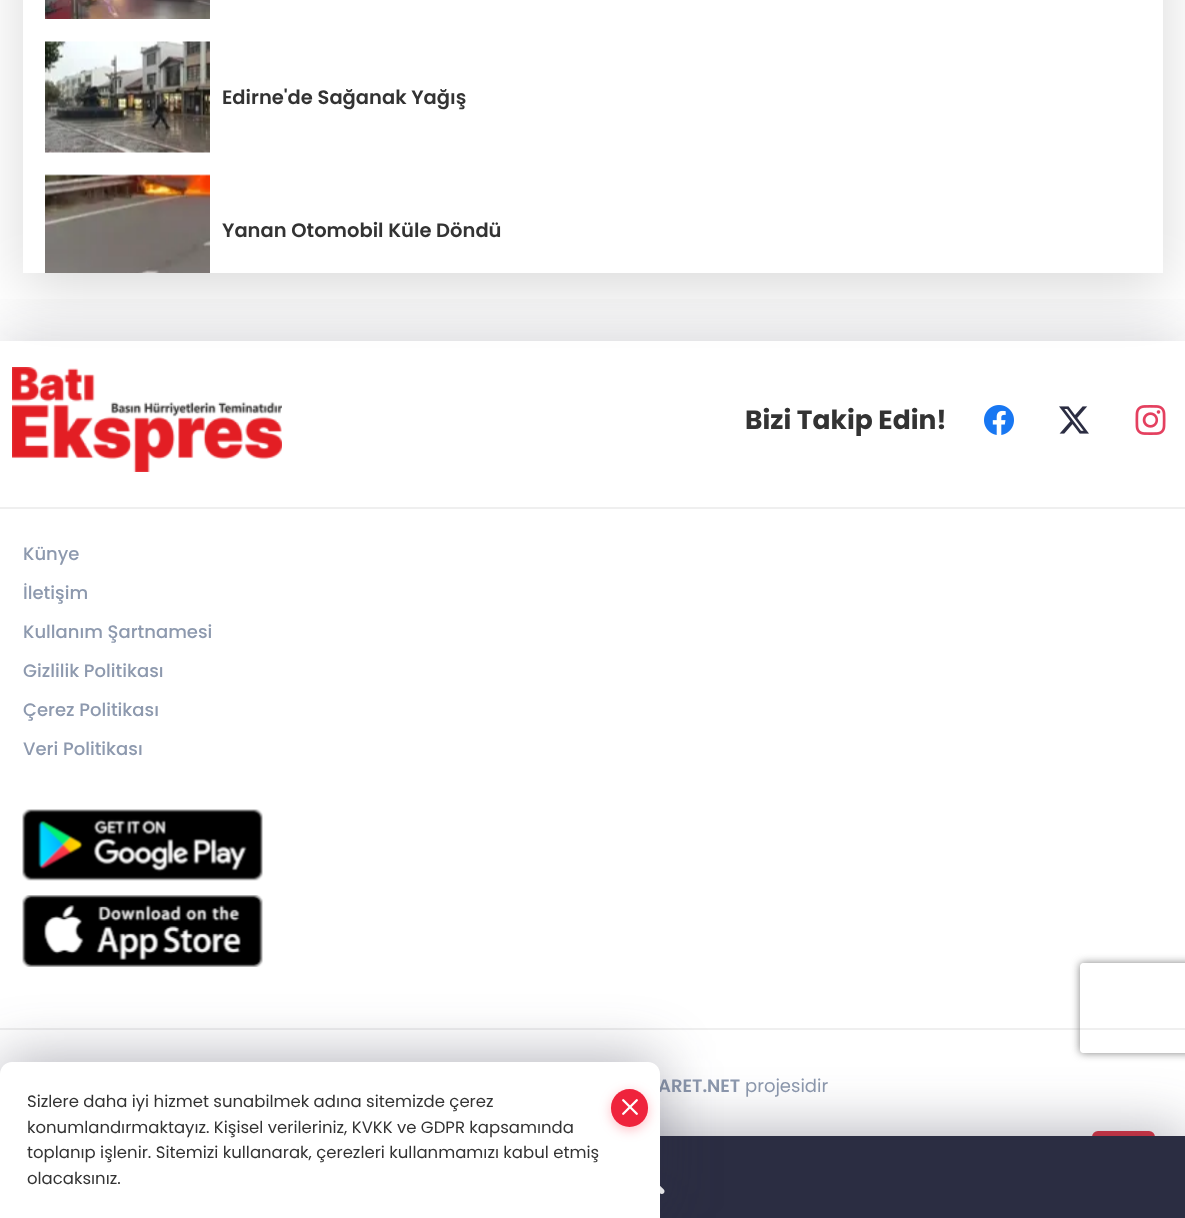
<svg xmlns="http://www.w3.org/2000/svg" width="1185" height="1218">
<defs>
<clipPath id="clip1"><rect x="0" y="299" width="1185" height="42"/></clipPath>
<clipPath id="clip2"><path d="M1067 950h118v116h-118zm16 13h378c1.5 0 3 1.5 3 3v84c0 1.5-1.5 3-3 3h-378c-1.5 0-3-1.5-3-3v-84c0-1.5 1.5-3 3-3z" clip-rule="evenodd"/></clipPath>
</defs>
<rect width="100%" height="100%" fill="#fff"/>
<rect x="23" y="-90" width="1140" height="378" fill="#00000026" filter="blur(30px)"/>
<rect x="23" width="1140" height="273" fill="#fff"/>
<image x="45" y="0" width="165" height="19" href="media/1.png"/>
<image x="45" y="41" width="165" height="112" href="media/2.png"/>
<text x="222" y="104" style="font-family:Poppins;font-size:19.5px;font-weight:600;fill:#333">Edirne'de Sağanak Yağış</text>
<image x="45" y="174" width="165" height="99" href="media/3.png"/>
<text x="222" y="237" style="font-family:Poppins;font-size:19.5px;font-weight:600;fill:#333">Yanan Otomobil Küle Döndü</text>
<g clip-path="url(#clip1)">
<rect y="336" width="1185" height="878" fill="#2b2d4233" filter="blur(28.5px)"/>
</g>
<rect y="507" width="1185" height="2" fill="#efefef"/>
<image x="12" y="367" width="270" height="105" href="media/4.png"/>
<text x="745" y="429" style="font-family:Poppins;font-size:26.5px;font-weight:bold;fill:#333">Bizi Takip Edin!</text>
<image x="984" y="405" width="30" height="30" href="media/5.png"/>
<image x="1059" y="406" width="30" height="28" href="media/6.png"/>
<image x="1135" y="405" width="31" height="30" href="media/7.png"/>
<text x="23" y="560" style="font-family:Poppins;font-size:18px;font-weight:500;fill:#8d99ae">Künye</text>
<text x="23" y="599" style="font-family:Poppins;font-size:18px;font-weight:500;fill:#8d99ae">İletişim</text>
<text x="23" y="638" style="font-family:Poppins;font-size:18px;font-weight:500;fill:#8d99ae">Kullanım Şartnamesi</text>
<text x="23" y="677" style="font-family:Poppins;font-size:18px;font-weight:500;fill:#8d99ae">Gizlilik Politikası</text>
<text x="23" y="716" style="font-family:Poppins;font-size:18px;font-weight:500;fill:#8d99ae">Çerez Politikası</text>
<text x="23" y="755" style="font-family:Poppins;font-size:18px;font-weight:500;fill:#8d99ae">Veri Politikası</text>
<image x="22" y="809" width="241" height="72" href="media/8.png"/>
<image x="22" y="895" width="241" height="72" href="media/9.png"/>
<rect y="1028" width="1185" height="2" fill="#efefef"/>
<text x="658" y="1092" style="font-family:Poppins;font-size:18px;font-weight:600;fill:#8d99ae">ARET.NET</text>
<text x="745" y="1092" style="font-family:Poppins;font-size:18px;fill:#8d99ae">projesidir</text>
<rect x="1093" y="1132" width="61" height="55" rx="5" fill="#dc3545" stroke="#dc3545" stroke-width="2"/>
<rect y="1131" width="1185" height="83" fill="#2b2d425c" filter="blur(28.5px)"/>
<rect x="660" y="1136" width="525" height="82" fill="#2b2d42"/>
<image x="660" y="1185" width="5" height="9" href="media/10.png"/>
<g clip-path="url(#clip2)">
<rect x="1080" y="963" width="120" height="90" rx="3" fill="#808080" filter="blur(4px)"/>
</g>
<rect y="1058" width="660" height="156" rx="12" fill="#2b2d425c" filter="blur(28.5px)"/>
<path d="M12 1062h636c6.5 0 12 5.5 12 12v144h-660v-144c0-6.5 5.5-12 12-12z" fill="#fff"/>
<text x="27" y="1107" style="font-family:Poppins;font-size:16.5px;fill:#333">Sizlere daha iyi hizmet sunabilmek adına sitemizde çerez</text>
<rect x="611" y="1092" width="37" height="38" rx="18.5" fill="#ff566a61" filter="blur(6px)"/>
<rect x="611" y="1089" width="37" height="38" rx="18.5" fill="#ef233c"/>
<image x="622" y="1099" width="16" height="16" href="media/11.png"/>
<text x="27" y="1133" style="font-family:Poppins;font-size:16.5px;fill:#333">konumlandırmaktayız. Kişisel verileriniz, KVKK ve GDPR kapsamında</text>
<text x="27" y="1158" style="font-family:Poppins;font-size:16.5px;fill:#333">toplanıp işlenir. Sitemizi kullanarak, çerezleri kullanmamızı kabul etmiş</text>
<text x="27" y="1184" style="font-family:Poppins;font-size:16.5px;fill:#333">olacaksınız.</text>
</svg>
